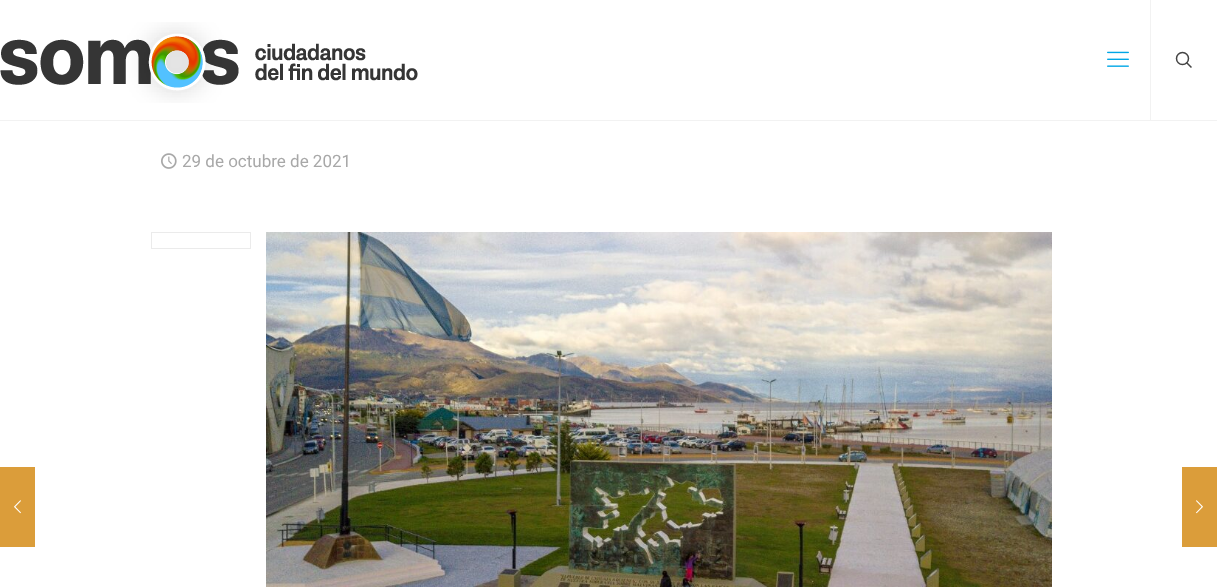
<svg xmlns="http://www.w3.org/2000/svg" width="1217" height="587">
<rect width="100%" height="100%" fill="#fff"/>
<rect y="120" width="1217" height="1" fill="#f2f2f2"/>
<image x="0" y="22" width="418" height="81" href="media/1.png"/>
<image x="1107" y="51" width="22" height="16" href="media/2.png"/>
<rect x="1150" width="1" height="120" fill="#f2f2f2"/>
<circle cx="1182.5" cy="58.5" r="6" fill="none" stroke="#444" stroke-width="1.5"/>
<path d="M1186.5 62.5l5 5" fill="none" stroke="#444" stroke-width="1.5"/>
<image x="161" y="153" width="16" height="16" href="media/3.png"/>
<text x="182" y="167" style="font-family:Roboto;font-size:17px;fill:#a8a8a8">29 de octubre de 2021</text>
<rect x="151.5" y="232.5" width="99" height="16" fill="none" stroke="#ebebeb"/>
<image x="266" y="232" width="786" height="355" href="media/4.png"/>
<rect y="467" width="35" height="80" fill="#db9d3a"/>
<image x="14" y="500" width="7" height="14" href="media/5.png"/>
<rect x="1182" y="467" width="35" height="80" fill="#db9d3a"/>
<image x="1196" y="500" width="7" height="14" href="media/6.png"/>
</svg>
